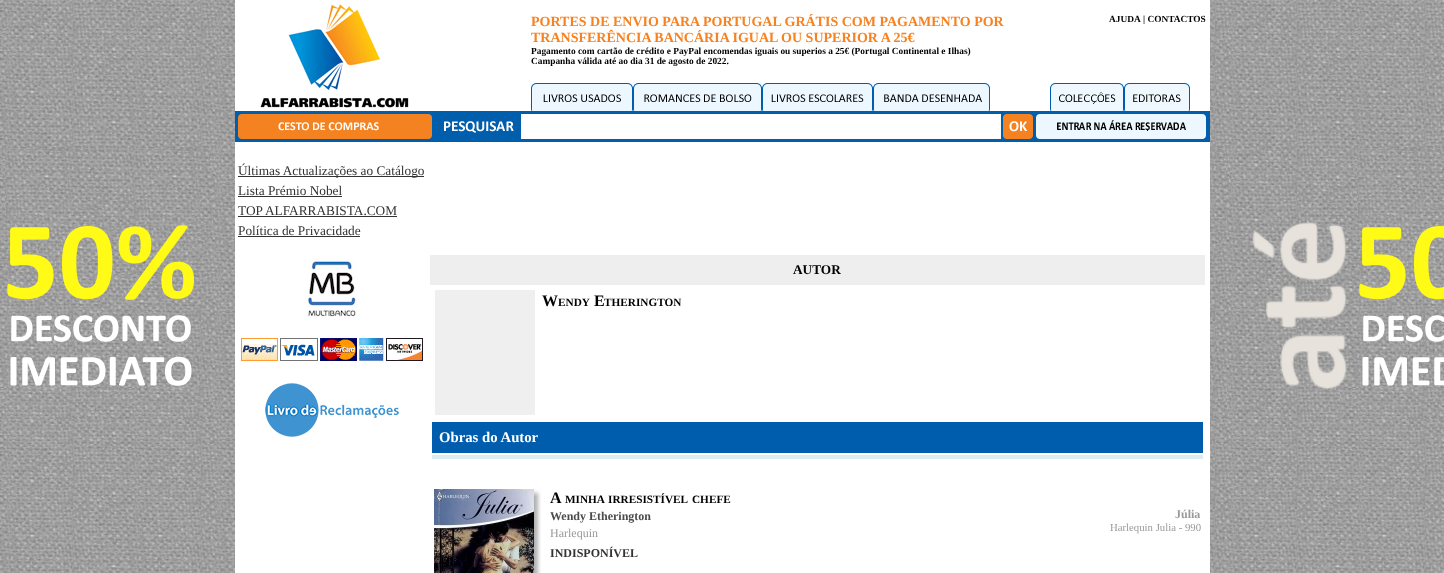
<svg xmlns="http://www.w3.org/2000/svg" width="1444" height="573">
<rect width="100%" height="100%" fill="#fff"/>
<image x="0" y="0" width="1444" height="573" href="media/1.png"/>
<rect x="235" width="975" height="111" fill="#fff"/>
<image x="260" y="4" width="149" height="104" href="media/2.png"/>
<text x="531" y="26" style="font-family:Liberation Serif;font-size:14px;font-weight:bold;fill:#f78221">PORTES DE ENVIO PARA PORTUGAL GRÁTIS COM PAGAMENTO POR</text>
<text x="531" y="42" style="font-family:Liberation Serif;font-size:14px;font-weight:bold;fill:#f78221">TRANSFERÊNCIA BANCÁRIA IGUAL OU SUPERIOR A 25€</text>
<text x="531" y="54" style="font-family:Liberation Serif;font-size:9.35px;font-weight:bold;fill:#000">Pagamento com cartão de crédito e PayPal encomendas iguais ou superios a 25€ (Portugal Continental e Ilhas)</text>
<text x="531" y="64" style="font-family:Liberation Serif;font-size:9.35px;font-weight:bold;fill:#000">Campanha válida até ao dia 31 de agosto de 2022.</text>
<text x="1109" y="22" style="font-family:Liberation Serif;font-size:9.35px;font-weight:bold;fill:#000">AJUDA</text>
<text x="1143" y="22" style="font-family:Liberation Serif;font-size:9.35px;font-weight:bold;fill:#000">| CONTACTOS</text>
<image x="531" y="83" width="102" height="28" href="media/3.png"/>
<image x="633" y="83" width="129" height="28" href="media/4.png"/>
<image x="762" y="83" width="111" height="28" href="media/5.png"/>
<image x="873" y="83" width="117" height="28" href="media/6.png"/>
<image x="1050" y="83" width="74" height="28" href="media/7.png"/>
<image x="1124" y="83" width="66" height="28" href="media/8.png"/>
<rect x="235" y="111" width="975" height="31" fill="#005ead"/>
<image x="238" y="114" width="194" height="25" href="media/9.png"/>
<image x="444" y="121" width="70" height="12" href="media/10.png"/>
<rect x="521" y="114" width="480" height="25" fill="#fff"/>
<image x="1003" y="114" width="30" height="25" href="media/11.png"/>
<image x="1036" y="114" width="170" height="25" href="media/12.png"/>
<rect x="235" y="142" width="975" height="431" fill="#fff"/>
<rect x="238" y="176" width="186" height="1" fill="#333"/>
<text x="238" y="175" style="font-family:Liberation Serif;font-size:13.3px;fill:#333">Últimas Actualizações ao Catálogo</text>
<text x="238" y="195" style="font-family:Liberation Serif;font-size:13.3px;fill:#333">Lista Prémio Nobel</text>
<rect x="238" y="196" width="104" height="1" fill="#333"/>
<text x="238" y="215" style="font-family:Liberation Serif;font-size:13.3px;fill:#333">TOP ALFARRABISTA.COM</text>
<rect x="238" y="216" width="159" height="1" fill="#333"/>
<text x="238" y="235" style="font-family:Liberation Serif;font-size:13.3px;fill:#333">Política de Privacidade</text>
<rect x="238" y="236" width="122" height="1" fill="#333"/>
<image x="307" y="260" width="50" height="57" href="media/13.png"/>
<image x="241" y="338" width="182" height="23" href="media/14.png"/>
<image x="265" y="383" width="134" height="54" href="media/15.png"/>
<rect x="430" y="255" width="775" height="30" fill="#eee"/>
<text x="793" y="274" style="font-family:Liberation Serif;font-size:13.3px;font-weight:bold;fill:#000">AUTOR</text>
<rect x="435" y="290" width="100" height="125" fill="#efefef"/>
<text x="542" y="306" style="font-family:Liberation Serif;font-size:16px;font-weight:bold;fill:#000">W</text>
<text x="558" y="306" style="font-family:Liberation Serif;font-size:11.25px;font-weight:bold;fill:#000">ENDY</text>
<text x="594" y="306" style="font-family:Liberation Serif;font-size:16px;font-weight:bold;fill:#000">E</text>
<text x="604" y="306" style="font-family:Liberation Serif;font-size:11.25px;font-weight:bold;fill:#000">THERINGTON</text>
<rect x="432" y="422" width="771" height="31" fill="#005dad"/>
<text x="439" y="442" style="font-family:Liberation Serif;font-size:14.75px;font-weight:bold;fill:#fff">Obras do Autor</text>
<rect x="432" y="455" width="771" height="4" fill="#daebf2"/>
<image x="434" y="489" width="100" height="84" href="media/16.png"/>
<image x="534" y="496" width="7" height="77" href="media/17.png"/>
<image x="534" y="489" width="7" height="7" href="media/18.png"/>
<text x="550" y="503" style="font-family:Liberation Serif;font-size:16px;font-weight:bold;fill:#000">A</text>
<text x="565" y="503" style="font-family:Liberation Serif;font-size:11.25px;font-weight:bold;fill:#000">MINHA</text>
<text x="608" y="503" style="font-family:Liberation Serif;font-size:11.25px;font-weight:bold;fill:#000">IRRESISTÍVEL</text>
<text x="692" y="503" style="font-family:Liberation Serif;font-size:11.25px;font-weight:bold;fill:#000">CHEFE</text>
<text x="550" y="520" style="font-family:Liberation Serif;font-size:12px;font-weight:bold;fill:#4b4b4b">Wendy Etherington</text>
<text x="550" y="537" style="font-family:Liberation Serif;font-size:12px;fill:#999">Harlequin</text>
<text x="550" y="557" style="font-family:Liberation Serif;font-size:12px;font-weight:bold;fill:#333">INDISPONÍVEL</text>
<text x="1175" y="518" style="font-family:Liberation Serif;font-size:12px;font-weight:bold;fill:#999">Júlia</text>
<text x="1110" y="531" style="font-family:Liberation Serif;font-size:10.75px;fill:#999">Harlequin Julia - 990</text>
</svg>
